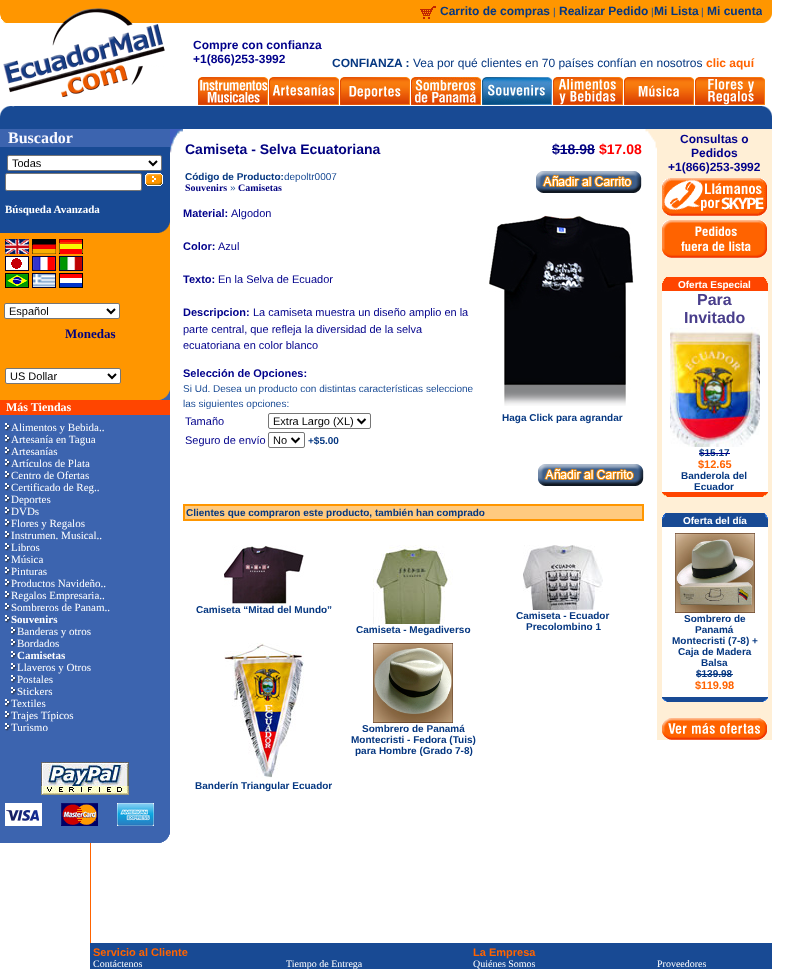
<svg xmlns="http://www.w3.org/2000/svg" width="802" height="969">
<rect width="100%" height="100%" fill="#fff"/>
<rect width="772" height="23" fill="#ff9600"/>
<image x="0" y="8" width="132" height="15" href="media/1.png"/>
<image x="420" y="6" width="16" height="13" href="media/2.png"/>
<text x="440" y="15" style="font-family:Liberation Sans;font-size:12px;font-weight:bold;fill:#053781">Carrito de compras</text>
<text x="553" y="15" style="font-family:Liberation Sans;font-size:10px;fill:#184a94">|</text>
<text x="559" y="15" style="font-family:Liberation Sans;font-size:12px;font-weight:bold;fill:#053781">Realizar Pedido</text>
<text x="651" y="15" style="font-family:Liberation Sans;font-size:10px;fill:#184a94">|</text>
<text x="654" y="15" style="font-family:Liberation Sans;font-size:12px;font-weight:bold;fill:#053781">Mi Lista</text>
<text x="701" y="15" style="font-family:Liberation Sans;font-size:10px;fill:#184a94">|</text>
<text x="707" y="15" style="font-family:Liberation Sans;font-size:12px;font-weight:bold;fill:#053781">Mi cuenta</text>
<image x="762" y="13" width="10" height="10" href="media/3.png"/>
<image x="3" y="23" width="162" height="74" href="media/4.png"/>
<text x="193" y="49" style="font-family:Liberation Sans;font-size:12px;font-weight:bold;fill:#00008b">Compre con confianza</text>
<text x="193" y="63" style="font-family:Liberation Sans;font-size:12px;font-weight:bold;fill:#00008b">+1(866)253-3992</text>
<text x="332" y="67" style="font-family:Liberation Sans;font-size:12px;font-weight:bold;fill:#053781">CONFIANZA :</text>
<text x="413" y="67" style="font-family:Liberation Sans;font-size:12px;fill:#053781">Vea por qué clientes en 70 países confían en nosotros</text>
<text x="706" y="67" style="font-family:Liberation Sans;font-size:12px;font-weight:bold;fill:#ff6300">clic aquí</text>
<image x="198" y="77" width="70" height="28" href="media/5.png"/>
<image x="269" y="77" width="70" height="28" href="media/6.png"/>
<image x="340" y="77" width="70" height="28" href="media/7.png"/>
<image x="411" y="77" width="70" height="28" href="media/8.png"/>
<image x="482" y="77" width="70" height="28" href="media/9.png"/>
<image x="553" y="77" width="70" height="28" href="media/10.png"/>
<image x="624" y="77" width="70" height="28" href="media/11.png"/>
<image x="695" y="77" width="70" height="28" href="media/12.png"/>
<rect y="106" width="772" height="23" fill="#184a94"/>
<image x="0" y="106" width="15" height="12" href="media/13.png"/>
<image x="762" y="106" width="10" height="12" href="media/14.png"/>
<rect y="147" width="170" height="86" fill="#184a94"/>
<rect y="129" width="170" height="18" fill="#3c64af"/>
<text x="8" y="143" style="font-family:Liberation Serif;font-size:16px;font-weight:bold;fill:#f8f8ff">Buscador</text>
<rect x="7.5" y="155.5" width="154" height="15" rx="1.5" fill="#fff" stroke="#767676"/>
<path d="M149 161l4 4l4-4" fill="none" stroke="#000" stroke-width="2"/>
<text x="12" y="167" style="font-family:Liberation Sans;font-size:11px;fill:#000">Todas</text>
<rect x="5.5" y="173.5" width="136" height="17" rx="1.5" fill="#fff" stroke="#767676"/>
<image x="145" y="173" width="18" height="13" href="media/15.png"/>
<text x="5" y="213" style="font-family:Liberation Serif;font-size:11px;font-weight:bold;fill:#fff">Búsqueda Avanzada</text>
<image x="158" y="221" width="12" height="12" href="media/16.png"/>
<rect y="233" width="170" height="167" fill="#ff9600"/>
<image x="5" y="239" width="24" height="15" href="media/17.png"/>
<image x="32" y="239" width="24" height="15" href="media/18.png"/>
<image x="59" y="239" width="24" height="15" href="media/19.png"/>
<image x="5" y="256" width="24" height="15" href="media/20.png"/>
<image x="32" y="256" width="24" height="15" href="media/21.png"/>
<image x="59" y="256" width="24" height="15" href="media/22.png"/>
<image x="5" y="273" width="24" height="15" href="media/23.png"/>
<image x="32" y="273" width="24" height="15" href="media/24.png"/>
<image x="59" y="273" width="24" height="15" href="media/25.png"/>
<rect x="4.5" y="303.5" width="115" height="15" rx="1.5" fill="#fff" stroke="#767676"/>
<path d="M107 309l4 4l4-4" fill="none" stroke="#000" stroke-width="2"/>
<text x="9" y="315" style="font-family:Liberation Sans;font-size:11px;fill:#000">Español</text>
<text x="65" y="338" style="font-family:Liberation Serif;font-size:13px;font-weight:bold;fill:#000080">Monedas</text>
<rect x="5.5" y="368.5" width="115" height="15" rx="1.5" fill="#fff" stroke="#767676"/>
<path d="M108 374l4 4l4-4" fill="none" stroke="#000" stroke-width="2"/>
<text x="10" y="380" style="font-family:Liberation Sans;font-size:11px;fill:#000">US Dollar</text>
<image x="159" y="390" width="11" height="10" href="media/26.png"/>
<rect y="415" width="170" height="428" fill="#3c64af"/>
<rect y="400" width="170" height="15" fill="#ff4500"/>
<text x="6" y="411" style="font-family:Liberation Serif;font-size:12px;font-weight:bold;fill:#fff">Más Tiendas</text>
<image x="5" y="423" width="6" height="8" href="media/27.png"/>
<text x="11" y="431" style="font-family:Liberation Serif;font-size:11px;fill:#fff">Alimentos y Bebida..</text>
<image x="5" y="435" width="6" height="8" href="media/27.png"/>
<text x="11" y="443" style="font-family:Liberation Serif;font-size:11px;fill:#fff">Artesanía en Tagua</text>
<image x="5" y="447" width="6" height="8" href="media/27.png"/>
<text x="11" y="455" style="font-family:Liberation Serif;font-size:11px;fill:#fff">Artesanías</text>
<image x="5" y="459" width="6" height="8" href="media/27.png"/>
<text x="11" y="467" style="font-family:Liberation Serif;font-size:11px;fill:#fff">Artículos de Plata</text>
<image x="5" y="471" width="6" height="8" href="media/27.png"/>
<text x="11" y="479" style="font-family:Liberation Serif;font-size:11px;fill:#fff">Centro de Ofertas</text>
<image x="5" y="483" width="6" height="8" href="media/27.png"/>
<text x="11" y="491" style="font-family:Liberation Serif;font-size:11px;fill:#fff">Certificado de Reg..</text>
<image x="5" y="495" width="6" height="8" href="media/27.png"/>
<text x="11" y="503" style="font-family:Liberation Serif;font-size:11px;fill:#fff">Deportes</text>
<image x="5" y="507" width="6" height="8" href="media/27.png"/>
<text x="11" y="515" style="font-family:Liberation Serif;font-size:11px;fill:#fff">DVDs</text>
<image x="5" y="519" width="6" height="8" href="media/27.png"/>
<text x="11" y="527" style="font-family:Liberation Serif;font-size:11px;fill:#fff">Flores y Regalos</text>
<image x="5" y="531" width="6" height="8" href="media/27.png"/>
<text x="11" y="539" style="font-family:Liberation Serif;font-size:11px;fill:#fff">Instrumen. Musical..</text>
<image x="5" y="543" width="6" height="8" href="media/27.png"/>
<text x="11" y="551" style="font-family:Liberation Serif;font-size:11px;fill:#fff">Libros</text>
<image x="5" y="555" width="6" height="8" href="media/27.png"/>
<text x="11" y="563" style="font-family:Liberation Serif;font-size:11px;fill:#fff">Música</text>
<image x="5" y="567" width="6" height="8" href="media/27.png"/>
<text x="11" y="575" style="font-family:Liberation Serif;font-size:11px;fill:#fff">Pinturas</text>
<image x="5" y="579" width="6" height="8" href="media/27.png"/>
<text x="11" y="587" style="font-family:Liberation Serif;font-size:11px;fill:#fff">Productos Navideño..</text>
<image x="5" y="591" width="6" height="8" href="media/27.png"/>
<text x="11" y="599" style="font-family:Liberation Serif;font-size:11px;fill:#fff">Regalos Empresaria..</text>
<image x="5" y="603" width="6" height="8" href="media/27.png"/>
<text x="11" y="611" style="font-family:Liberation Serif;font-size:11px;fill:#fff">Sombreros de Panam..</text>
<image x="5" y="615" width="6" height="8" href="media/27.png"/>
<text x="11" y="623" style="font-family:Liberation Serif;font-size:11px;font-weight:bold;fill:#fff">Souvenirs</text>
<image x="11" y="627" width="6" height="8" href="media/27.png"/>
<text x="17" y="635" style="font-family:Liberation Serif;font-size:11px;fill:#fff">Banderas y otros</text>
<image x="11" y="639" width="6" height="8" href="media/27.png"/>
<text x="17" y="647" style="font-family:Liberation Serif;font-size:11px;fill:#fff">Bordados</text>
<image x="11" y="651" width="6" height="8" href="media/27.png"/>
<text x="17" y="659" style="font-family:Liberation Serif;font-size:11px;font-weight:bold;fill:#fff">Camisetas</text>
<image x="11" y="663" width="6" height="8" href="media/27.png"/>
<text x="17" y="671" style="font-family:Liberation Serif;font-size:11px;fill:#fff">Llaveros y Otros</text>
<image x="11" y="675" width="6" height="8" href="media/27.png"/>
<text x="17" y="683" style="font-family:Liberation Serif;font-size:11px;fill:#fff">Postales</text>
<image x="11" y="687" width="6" height="8" href="media/27.png"/>
<text x="17" y="695" style="font-family:Liberation Serif;font-size:11px;fill:#fff">Stickers</text>
<image x="5" y="699" width="6" height="8" href="media/27.png"/>
<text x="11" y="707" style="font-family:Liberation Serif;font-size:11px;fill:#fff">Textiles</text>
<image x="5" y="711" width="6" height="8" href="media/27.png"/>
<text x="11" y="719" style="font-family:Liberation Serif;font-size:11px;fill:#fff">Trajes Típicos</text>
<image x="5" y="723" width="6" height="8" href="media/27.png"/>
<text x="11" y="731" style="font-family:Liberation Serif;font-size:11px;fill:#fff">Turismo</text>
<image x="41" y="762" width="88" height="33" href="media/28.png"/>
<image x="5" y="803" width="37" height="23" href="media/29.png"/>
<image x="61" y="803" width="37" height="23" href="media/30.png"/>
<image x="117" y="803" width="37" height="23" href="media/31.png"/>
<image x="160" y="833" width="10" height="10" href="media/32.png"/>
<image x="0" y="843" width="170" height="100" href="media/33.png"/>
<image x="170" y="129" width="13" height="24" href="media/34.png"/>
<text x="185" y="154" style="font-family:Liberation Sans;font-size:14px;font-weight:bold;fill:#000080">Camiseta - Selva Ecuatoriana</text>
<text x="552" y="154" style="font-family:Liberation Sans;font-size:14px;font-weight:bold;fill:#000080">$18.98</text>
<rect x="552" y="149" width="43" height="1" fill="#000080"/>
<text x="599" y="154" style="font-family:Liberation Sans;font-size:14px;font-weight:bold;fill:#f00">$17.08</text>
<text x="185" y="180" style="font-family:Liberation Sans;font-size:10px;font-weight:bold;fill:#053781">Código de Producto:</text>
<text x="284" y="180" style="font-family:Liberation Sans;font-size:10px;fill:#184a94">depoltr0007</text>
<text x="185" y="191" style="font-family:Liberation Serif;font-size:10px;font-weight:bold;fill:#000080">Souvenirs</text>
<text x="230" y="191" style="font-family:Liberation Sans;font-size:10px;fill:#184a94">»</text>
<text x="238" y="191" style="font-family:Liberation Serif;font-size:10px;font-weight:bold;fill:#000080">Camisetas</text>
<image x="536" y="171" width="106" height="22" href="media/35.png"/>
<text x="183" y="217" style="font-family:Liberation Sans;font-size:11px;font-weight:bold;fill:#00008b">Material:</text>
<text x="231" y="217" style="font-family:Liberation Sans;font-size:11px;fill:#00008b">Algodon</text>
<text x="183" y="250" style="font-family:Liberation Sans;font-size:11px;font-weight:bold;fill:#00008b">Color:</text>
<text x="218" y="250" style="font-family:Liberation Sans;font-size:11px;fill:#00008b">Azul</text>
<text x="183" y="283" style="font-family:Liberation Sans;font-size:11px;font-weight:bold;fill:#00008b">Texto:</text>
<text x="218" y="283" style="font-family:Liberation Sans;font-size:11px;fill:#00008b">En la Selva de Ecuador</text>
<text x="183" y="316" style="font-family:Liberation Sans;font-size:11px;font-weight:bold;fill:#00008b">Descripcion:</text>
<text x="253" y="316" style="font-family:Liberation Sans;font-size:11px;fill:#00008b">La camiseta muestra un diseño amplio en la</text>
<text x="183" y="333" style="font-family:Liberation Sans;font-size:11px;fill:#00008b">parte central, que refleja la diversidad de la selva</text>
<text x="183" y="349" style="font-family:Liberation Sans;font-size:11px;fill:#00008b">ecuatoriana en color blanco</text>
<text x="183" y="377" style="font-family:Liberation Sans;font-size:11px;font-weight:bold;fill:#00008b">Selección de Opciones:</text>
<text x="183" y="392" style="font-family:Liberation Sans;font-size:10px;fill:#184a94">Si Ud. Desea un producto con distintas características seleccione</text>
<text x="183" y="407" style="font-family:Liberation Sans;font-size:10px;fill:#184a94">las siguientes opciones:</text>
<text x="185" y="425" style="font-family:Liberation Sans;font-size:11px;fill:#00008b">Tamaño</text>
<rect x="268.5" y="413.5" width="102" height="15" rx="1.5" fill="none" stroke="#767676"/>
<path d="M357.5 419l4 4l4-4" fill="none" stroke="#000" stroke-width="2"/>
<text x="273" y="425" style="font-family:Liberation Sans;font-size:11px;fill:#000">Extra Largo (XL)</text>
<text x="185" y="444" style="font-family:Liberation Sans;font-size:11px;fill:#00008b">Seguro de envío</text>
<rect x="268.5" y="432.5" width="36" height="15" rx="1.5" fill="none" stroke="#767676"/>
<path d="M291.5 438l4 4l4-4" fill="none" stroke="#000" stroke-width="2"/>
<text x="273" y="444" style="font-family:Liberation Sans;font-size:11px;fill:#000">No</text>
<text x="308" y="444" style="font-family:Liberation Sans;font-size:10px;font-weight:bold;fill:#053781">+$5.00</text>
<image x="489" y="215" width="145" height="191" href="media/36.png"/>
<text x="502" y="421" style="font-family:Liberation Sans;font-size:10px;font-weight:bold;fill:#053781">Haga Click para agrandar</text>
<image x="538" y="464" width="106" height="22" href="media/35.png"/>
<rect x="183" y="504" width="461" height="17" fill="#ff9600"/>
<rect x="185" y="506" width="457" height="13" fill="#ffca7f"/>
<text x="186" y="516" style="font-family:Liberation Sans;font-size:10px;font-weight:bold;fill:#053781">Clientes que compraron este producto, también han comprado</text>
<image x="224" y="545" width="80" height="59" href="media/37.png"/>
<text x="196" y="613" style="font-family:Liberation Sans;font-size:10px;font-weight:bold;fill:#053781">Camiseta “Mitad del Mundo”</text>
<image x="373" y="545" width="80" height="79" href="media/38.png"/>
<text x="356" y="633" style="font-family:Liberation Sans;font-size:10px;font-weight:bold;fill:#053781">Camiseta - Megadiverso</text>
<image x="523" y="545" width="80" height="65" href="media/39.png"/>
<text x="516" y="619" style="font-family:Liberation Sans;font-size:10px;font-weight:bold;fill:#053781">Camiseta - Ecuador</text>
<text x="526" y="630" style="font-family:Liberation Sans;font-size:10px;font-weight:bold;fill:#053781">Precolombino 1</text>
<image x="373" y="643" width="80" height="80" href="media/40.png"/>
<text x="362" y="732" style="font-family:Liberation Sans;font-size:10px;font-weight:bold;fill:#053781">Sombrero de Panamá</text>
<text x="351" y="743" style="font-family:Liberation Sans;font-size:10px;font-weight:bold;fill:#053781">Montecristi - Fedora (Tuis)</text>
<text x="355" y="754" style="font-family:Liberation Sans;font-size:10px;font-weight:bold;fill:#053781">para Hombre (Grado 7-8)</text>
<image x="224" y="643" width="80" height="135" href="media/41.png"/>
<text x="195" y="789" style="font-family:Liberation Sans;font-size:10px;font-weight:bold;fill:#053781">Banderín Triangular Ecuador</text>
<image x="645" y="129" width="12" height="20" href="media/42.png"/>
<rect x="657" y="129" width="115" height="611" fill="#ffefd6"/>
<text x="680" y="143" style="font-family:Liberation Sans;font-size:12px;font-weight:bold;fill:#00008b">Consultas o</text>
<text x="691" y="157" style="font-family:Liberation Sans;font-size:12px;font-weight:bold;fill:#00008b">Pedidos</text>
<text x="668" y="171" style="font-family:Liberation Sans;font-size:12px;font-weight:bold;fill:#00008b">+1(866)253-3992</text>
<image x="662" y="178" width="105" height="38" href="media/43.png"/>
<image x="662" y="220" width="105" height="38" href="media/44.png"/>
<image x="662" y="277" width="5" height="14" href="media/45.png"/>
<rect x="667" y="277" width="96" height="14" fill="#ff4500"/>
<text x="678" y="288" style="font-family:Liberation Sans;font-size:10px;font-weight:bold;fill:#fff">Oferta Especial</text>
<image x="763" y="277" width="5" height="14" href="media/46.png"/>
<rect x="662" y="291" width="106" height="201" fill="#fff"/>
<text x="697" y="305" style="font-family:Liberation Sans;font-size:16px;font-weight:bold;fill:#483d8b">Para</text>
<text x="684" y="323" style="font-family:Liberation Sans;font-size:16px;font-weight:bold;fill:#483d8b">Invitado</text>
<image x="670" y="327" width="90" height="120" href="media/47.png"/>
<text x="699" y="456" style="font-family:Liberation Sans;font-size:10px;font-weight:bold;fill:#053781">$15.17</text>
<rect x="699" y="453" width="31" height="1" fill="#00008b"/>
<text x="698" y="468" style="font-family:Liberation Sans;font-size:11px;font-weight:bold;fill:#ff6300">$12.65</text>
<text x="681" y="479" style="font-family:Liberation Sans;font-size:10px;font-weight:bold;fill:#053781">Banderola del</text>
<text x="694" y="490" style="font-family:Liberation Sans;font-size:10px;font-weight:bold;fill:#053781">Ecuador</text>
<image x="662" y="492" width="5" height="5" href="media/48.png"/>
<rect x="667" y="492" width="96" height="5" fill="#ff4500"/>
<image x="763" y="492" width="5" height="5" href="media/49.png"/>
<image x="662" y="513" width="5" height="14" href="media/50.png"/>
<rect x="667" y="513" width="96" height="14" fill="#184a94"/>
<text x="683" y="524" style="font-family:Liberation Sans;font-size:10px;font-weight:bold;fill:#fff">Oferta del día</text>
<image x="763" y="513" width="5" height="14" href="media/51.png"/>
<rect x="662" y="527" width="106" height="170" fill="#fff"/>
<image x="675" y="533" width="80" height="80" href="media/52.png"/>
<text x="684" y="622" style="font-family:Liberation Sans;font-size:10px;font-weight:bold;fill:#053781">Sombrero de</text>
<text x="695" y="633" style="font-family:Liberation Sans;font-size:10px;font-weight:bold;fill:#053781">Panamá</text>
<text x="672" y="644" style="font-family:Liberation Sans;font-size:10px;font-weight:bold;fill:#053781">Montecristi (7-8) +</text>
<text x="678" y="655" style="font-family:Liberation Sans;font-size:10px;font-weight:bold;fill:#053781">Caja de Madera</text>
<text x="701" y="666" style="font-family:Liberation Sans;font-size:10px;font-weight:bold;fill:#053781">Balsa</text>
<text x="696" y="677" style="font-family:Liberation Sans;font-size:10px;font-weight:bold;fill:#053781">$139.98</text>
<rect x="696" y="674" width="37" height="1" fill="#053781"/>
<text x="695" y="689" style="font-family:Liberation Sans;font-size:11px;font-weight:bold;fill:#ff6300">$119.98</text>
<image x="662" y="697" width="5" height="5" href="media/53.png"/>
<rect x="667" y="697" width="96" height="5" fill="#184a94"/>
<image x="763" y="697" width="5" height="5" href="media/54.png"/>
<image x="662" y="718" width="105" height="22" href="media/55.png"/>
<rect x="90" y="943" width="682" height="26" fill="#184a94"/>
<text x="93" y="956" style="font-family:Liberation Sans;font-size:11px;font-weight:bold;fill:#ff6300">Servicio al Cliente</text>
<text x="93" y="967" style="font-family:Liberation Serif;font-size:10px;fill:#fff">Contáctenos</text>
<text x="286" y="967" style="font-family:Liberation Serif;font-size:10px;fill:#fff">Tiempo de Entrega</text>
<text x="473" y="956" style="font-family:Liberation Sans;font-size:11px;font-weight:bold;fill:#ff6300">La Empresa</text>
<text x="473" y="967" style="font-family:Liberation Serif;font-size:10px;fill:#fff">Quiénes Somos</text>
<text x="657" y="967" style="font-family:Liberation Serif;font-size:10px;fill:#fff">Proveedores</text>
</svg>
